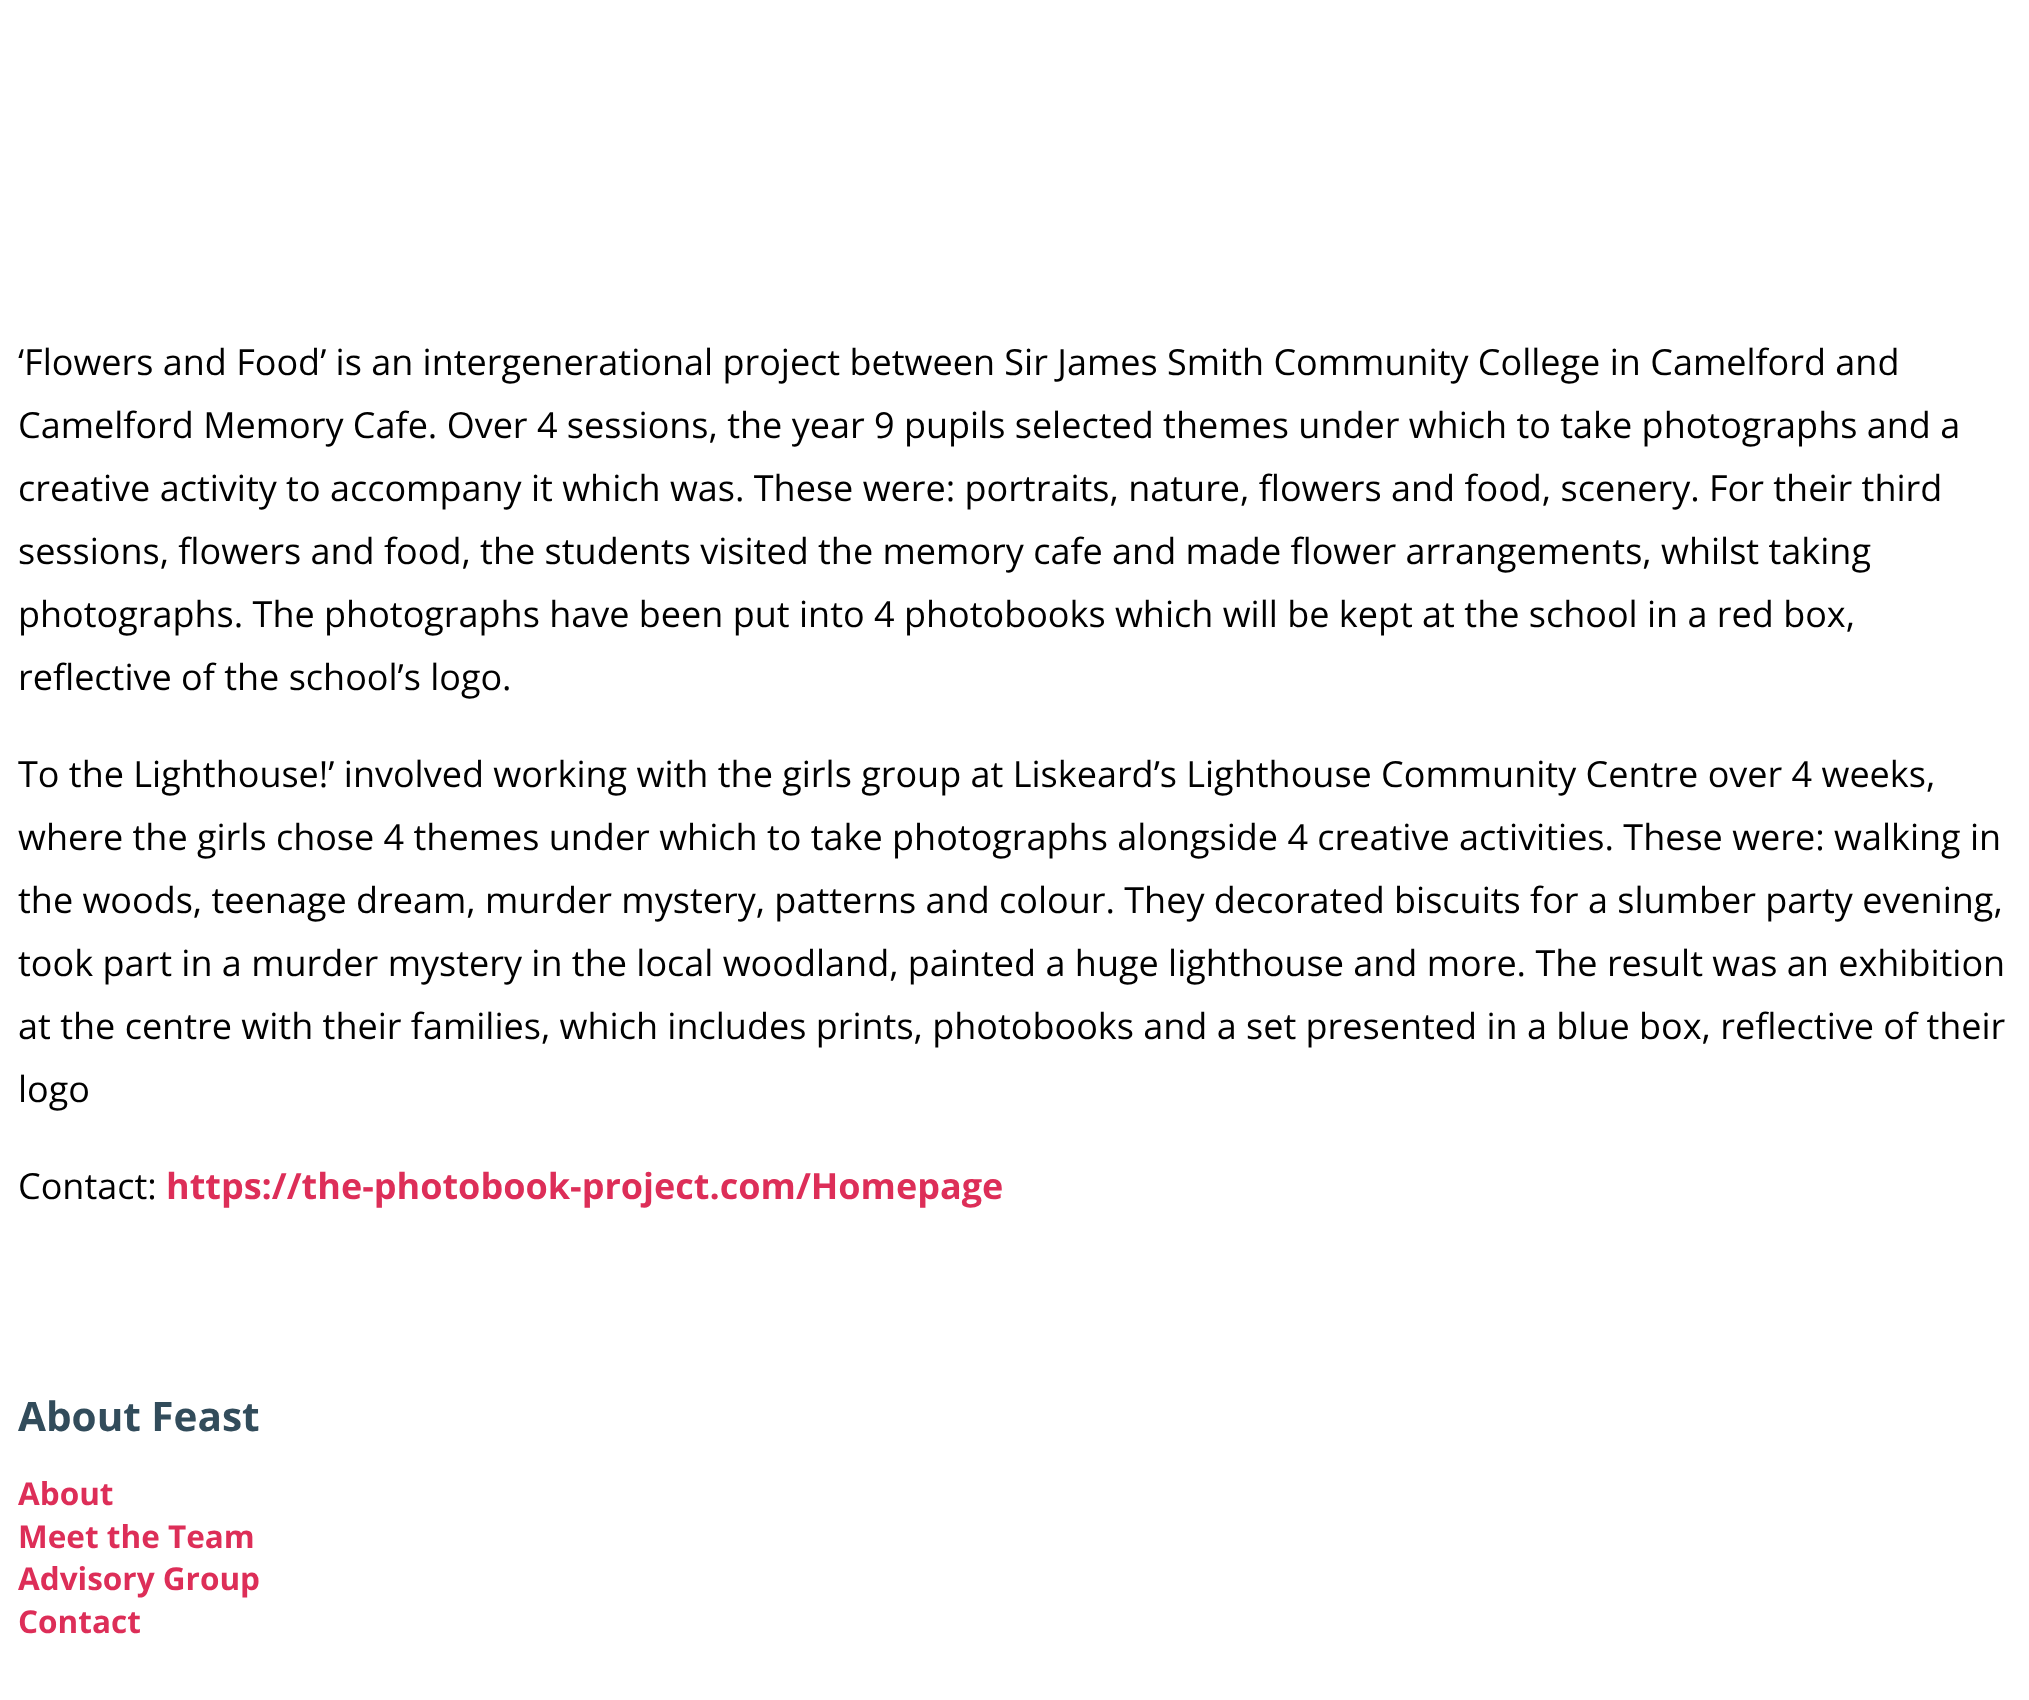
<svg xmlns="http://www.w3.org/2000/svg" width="2029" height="1700">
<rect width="100%" height="100%" fill="#fff"/>
<text x="18" y="375" style="font-family:Open Sans;font-size:36px;fill:#000">‘Flowers and Food’ is an intergenerational project between Sir James Smith Community College in Camelford and</text>
<text x="18" y="438" style="font-family:Open Sans;font-size:36px;fill:#000">Camelford Memory Cafe. Over 4 sessions, the year 9 pupils selected themes under which to take photographs and a</text>
<text x="18" y="501" style="font-family:Open Sans;font-size:36px;fill:#000">creative activity to accompany it which was. These were: portraits, nature, flowers and food, scenery. For their third</text>
<text x="18" y="564" style="font-family:Open Sans;font-size:36px;fill:#000">sessions, flowers and food, the students visited the memory cafe and made flower arrangements, whilst taking</text>
<text x="18" y="627" style="font-family:Open Sans;font-size:36px;fill:#000">photographs. The photographs have been put into 4 photobooks which will be kept at the school in a red box,</text>
<text x="18" y="690" style="font-family:Open Sans;font-size:36px;fill:#000">reflective of the school’s logo.</text>
<text x="18" y="787" style="font-family:Open Sans;font-size:36px;fill:#000">To the Lighthouse!’ involved working with the girls group at Liskeard’s Lighthouse Community Centre over 4 weeks,</text>
<text x="18" y="850" style="font-family:Open Sans;font-size:36px;fill:#000">where the girls chose 4 themes under which to take photographs alongside 4 creative activities. These were: walking in</text>
<text x="18" y="913" style="font-family:Open Sans;font-size:36px;fill:#000">the woods, teenage dream, murder mystery, patterns and colour. They decorated biscuits for a slumber party evening,</text>
<text x="18" y="976" style="font-family:Open Sans;font-size:36px;fill:#000">took part in a murder mystery in the local woodland, painted a huge lighthouse and more. The result was an exhibition</text>
<text x="18" y="1039" style="font-family:Open Sans;font-size:36px;fill:#000">at the centre with their families, which includes prints, photobooks and a set presented in a blue box, reflective of their</text>
<text x="18" y="1102" style="font-family:Open Sans;font-size:36px;fill:#000">logo</text>
<text x="18" y="1199" style="font-family:Open Sans;font-size:36px;fill:#000">Contact:</text>
<text x="166" y="1199" style="font-family:Open Sans;font-size:36px;font-weight:bold;fill:#dd2e58">https://the-photobook-project.com/Homepage</text>
<text x="18" y="1431" style="font-family:Open Sans;font-size:40.5px;font-weight:bold;fill:#324c5b">About Feast</text>
<text x="18" y="1505" style="font-family:Open Sans;font-size:31.5px;font-weight:bold;fill:#dd2e58">About</text>
<text x="18" y="1548" style="font-family:Open Sans;font-size:31.5px;font-weight:bold;fill:#dd2e58">Meet the Team</text>
<text x="18" y="1590" style="font-family:Open Sans;font-size:31.5px;font-weight:bold;fill:#dd2e58">Advisory Group</text>
<text x="18" y="1633" style="font-family:Open Sans;font-size:31.5px;font-weight:bold;fill:#dd2e58">Contact</text>
</svg>
